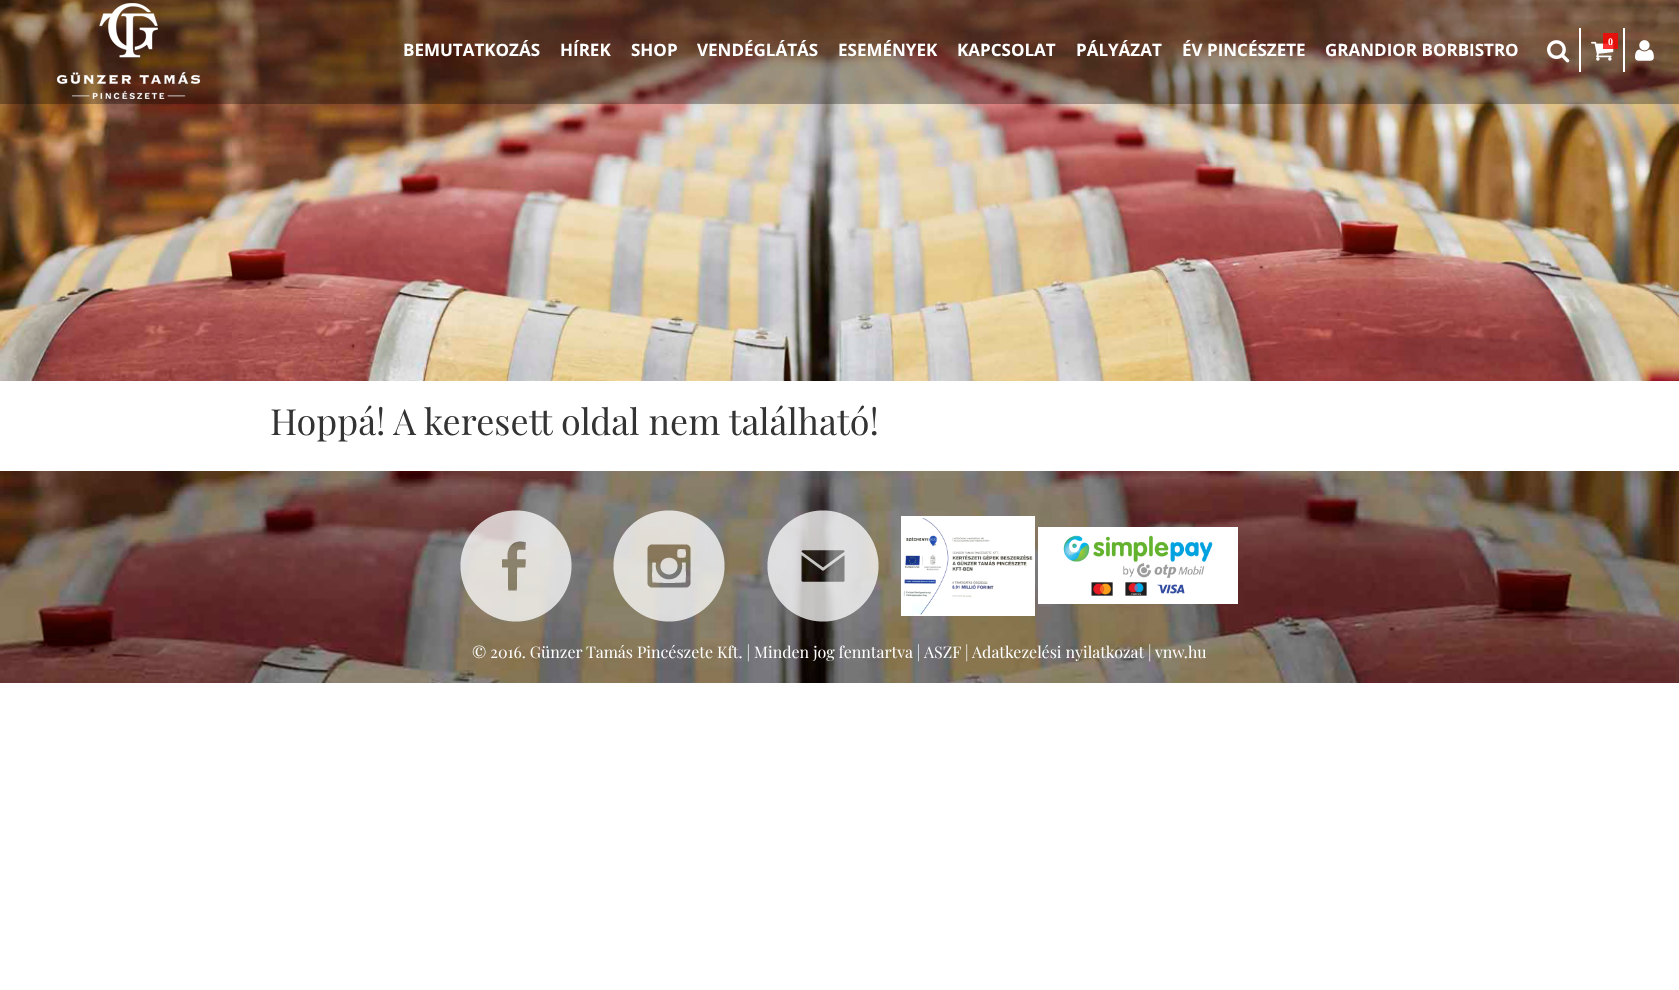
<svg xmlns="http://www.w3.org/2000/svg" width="1679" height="990">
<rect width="100%" height="100%" fill="#fff"/>
<image x="0" y="0" width="1679" height="381" href="media/5.png"/>
<rect width="1679" height="104" fill="#0000004d"/>
<image x="57" y="3" width="143" height="96" href="media/1.png"/>
<text x="403" y="56" style="font-family:Open Sans;font-size:17px;font-weight:bold;fill:#fff">BEMUTATKOZÁS</text>
<text x="560" y="56" style="font-family:Open Sans;font-size:17px;font-weight:bold;fill:#fff">HÍREK</text>
<text x="631" y="56" style="font-family:Open Sans;font-size:17px;font-weight:bold;fill:#fff">SHOP</text>
<text x="697" y="56" style="font-family:Open Sans;font-size:17px;font-weight:bold;fill:#fff">VENDÉGLÁTÁS</text>
<text x="838" y="56" style="font-family:Open Sans;font-size:17px;font-weight:bold;fill:#fff">ESEMÉNYEK</text>
<text x="957" y="56" style="font-family:Open Sans;font-size:17px;font-weight:bold;fill:#fff">KAPCSOLAT</text>
<text x="1076" y="56" style="font-family:Open Sans;font-size:17px;font-weight:bold;fill:#fff">PÁLYÁZAT</text>
<text x="1182" y="56" style="font-family:Open Sans;font-size:17px;font-weight:bold;fill:#fff">ÉV PINCÉSZETE</text>
<text x="1325" y="56" style="font-family:Open Sans;font-size:17px;font-weight:bold;fill:#fff">GRANDIOR BORBISTRO</text>
<image x="1547" y="40" width="23" height="23" href="media/2.png"/>
<rect x="1579" y="28" width="2" height="44" fill="#fff"/>
<image x="1591" y="41" width="23" height="20" href="media/3.png"/>
<rect x="1603" y="33" width="15" height="16" fill="#ff0000cc"/>
<text x="1608" y="45" style="font-family:Liberation Serif;font-size:10px;font-weight:bold;fill:#fff">0</text>
<rect x="1623" y="28" width="2" height="44" fill="#fff"/>
<image x="1635" y="40" width="19" height="21" href="media/4.png"/>
<text x="270" y="435" style="font-family:Playfair Display;font-size:36px;fill:#333">Hoppá! A keresett oldal nem található!</text>
<image x="0" y="471" width="1679" height="212" href="media/6.png"/>
<image x="460" y="510" width="112" height="112" href="media/7.png"/>
<image x="613" y="510" width="112" height="112" href="media/8.png"/>
<image x="767" y="510" width="112" height="112" href="media/9.png"/>
<image x="901" y="516" width="134" height="100" href="media/10.png"/>
<image x="1038" y="527" width="200" height="77" href="media/11.png"/>
<text x="472" y="658" style="font-family:Playfair Display;font-size:16px;fill:#fff">© 2016. Günzer Tamás Pincészete Kft. | Minden jog fenntartva |</text>
<text x="924" y="658" style="font-family:Playfair Display;font-size:16px;fill:#fff">ASZF</text>
<text x="965" y="658" style="font-family:Playfair Display;font-size:16px;fill:#fff">|</text>
<text x="972" y="658" style="font-family:Playfair Display;font-size:16px;fill:#fff">Adatkezelési nyilatkozat |</text>
<text x="1155" y="658" style="font-family:Playfair Display;font-size:16px;fill:#fff">vnw.hu</text>
</svg>
